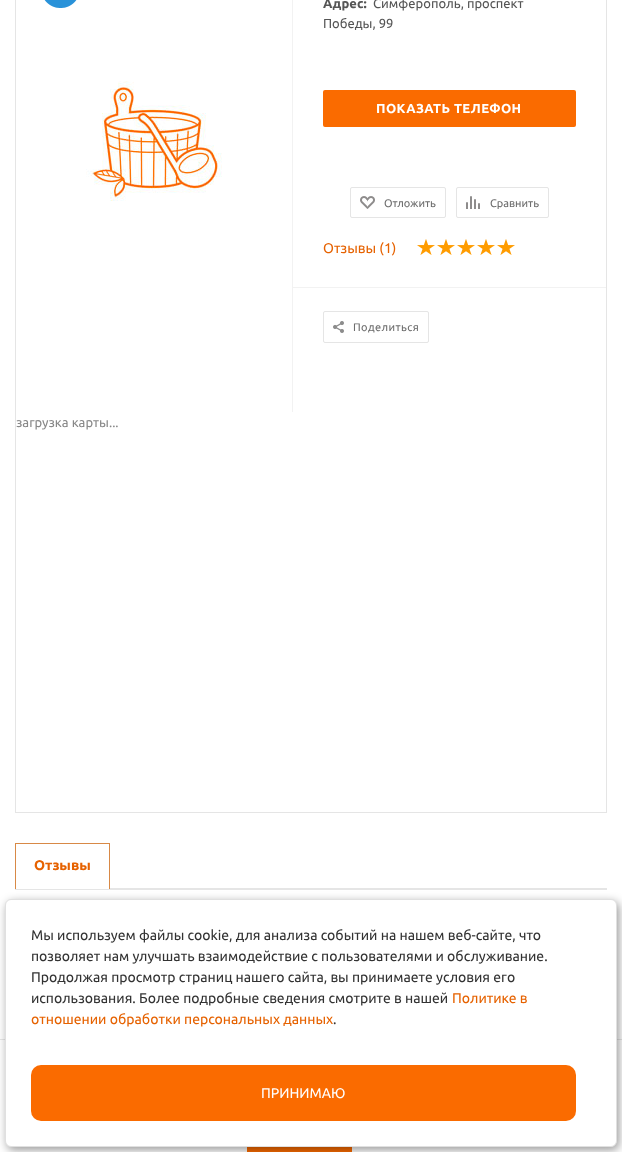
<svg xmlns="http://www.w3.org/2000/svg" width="622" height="1152">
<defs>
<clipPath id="clip1"><rect x="15" y="833" width="592" height="56"/></clipPath>
</defs>
<rect width="100%" height="100%" fill="#fff"/>
<rect x="15.5" y="-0.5" width="591" height="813" fill="none" stroke="#e5e5e5"/>
<image x="44" y="0" width="33" height="8" href="media/1.png"/>
<image x="86" y="81" width="136" height="120" href="media/2.png"/>
<rect x="292" width="1" height="412" fill="#f2f2f2"/>
<rect x="293" y="287" width="313" height="1" fill="#f2f2f2"/>
<text x="323" y="8" style="font-family:Ubuntu;font-size:13px;font-weight:bold;fill:#555">Адрес:</text>
<text x="373" y="8" style="font-family:Ubuntu;font-size:13px;fill:#555">Симферополь, проспект</text>
<text x="323" y="28" style="font-family:Ubuntu;font-size:13px;fill:#555">Победы, 99</text>
<rect x="323" y="90" width="253" height="37" rx="2" fill="#fa6b00"/>
<text x="376" y="113" style="font-family:Ubuntu;font-size:13px;font-weight:bold;letter-spacing:0.4px;fill:#fff">ПОКАЗАТЬ ТЕЛЕФОН</text>
<rect x="350.5" y="187.5" width="95" height="30" rx="1.5" fill="none" stroke="#e5e5e5"/>
<image x="360" y="196" width="15" height="13" href="media/3.png"/>
<text x="384" y="207" style="font-family:Ubuntu;font-size:11px;fill:#6d6d6d">Отложить</text>
<rect x="456.5" y="187.5" width="92" height="30" rx="1.5" fill="none" stroke="#e5e5e5"/>
<image x="466" y="196" width="14" height="13" href="media/4.png"/>
<text x="490" y="207" style="font-family:Ubuntu;font-size:11px;fill:#6d6d6d">Сравнить</text>
<text x="323" y="253" style="font-family:Ubuntu;font-size:14px;fill:#e66200">Отзывы (1)</text>
<image x="417" y="239" width="18" height="16" href="media/5.png"/>
<image x="437" y="239" width="18" height="16" href="media/5.png"/>
<image x="457" y="239" width="18" height="16" href="media/5.png"/>
<image x="477" y="239" width="18" height="16" href="media/5.png"/>
<image x="497" y="239" width="18" height="16" href="media/5.png"/>
<rect x="323.5" y="311.5" width="105" height="31" rx="1.5" fill="none" stroke="#e5e5e5"/>
<image x="333" y="321" width="11" height="12" href="media/6.png"/>
<text x="353" y="331" style="font-family:Ubuntu;font-size:11px;letter-spacing:0.4px;fill:#6d6d6d">Поделиться</text>
<text x="16" y="427" style="font-family:Ubuntu;font-size:13px;fill:#888">загрузка карты...</text>
<rect x="15" y="889" width="592" height="1" fill="#e5e5e5"/>
<g clip-path="url(#clip1)">
<rect x="15.5" y="843.5" width="94" height="46" fill="none" stroke="#d88946"/>
</g>
<text x="34" y="870" style="font-family:Ubuntu;font-size:14px;font-weight:bold;fill:#e66200">Отзывы</text>
<rect x="110" y="888" width="497" height="1" fill="#e5e5e5"/>
<rect y="1039" width="622" height="1" fill="#e7e7e7"/>
<rect x="247" y="1147" width="105" height="5" fill="#fa6b00"/>
<rect x="7" y="902" width="612" height="248" rx="6" fill="#00000066" filter="blur(5px)"/>
<rect x="5.5" y="899.5" width="611" height="247" rx="5.5" fill="#fff" stroke="#e0e0e0"/>
<text x="31" y="940" style="font-family:Ubuntu;font-size:14px;fill:#333">Мы используем файлы cookie, для анализа событий на нашем веб-сайте, что</text>
<text x="31" y="961" style="font-family:Ubuntu;font-size:14px;fill:#333">позволяет нам улучшать взаимодействие с пользователями и обслуживание.</text>
<text x="31" y="982" style="font-family:Ubuntu;font-size:14px;fill:#333">Продолжая просмотр страниц нашего сайта, вы принимаете условия его</text>
<text x="31" y="1003" style="font-family:Ubuntu;font-size:14px;fill:#333">использования. Более подробные сведения смотрите в нашей</text>
<text x="452" y="1003" style="font-family:Ubuntu;font-size:14px;fill:#e66200">Политике в</text>
<text x="31" y="1024" style="font-family:Ubuntu;font-size:14px;fill:#e66200">отношении обработки персональных данных</text>
<text x="333" y="1024" style="font-family:Ubuntu;font-size:14px;fill:#333">.</text>
<rect x="31" y="1065" width="545" height="56" rx="10" fill="#fa6b00"/>
<text x="261" y="1098" style="font-family:Ubuntu;font-size:14px;fill:#fff">ПРИНИМАЮ</text>
</svg>
